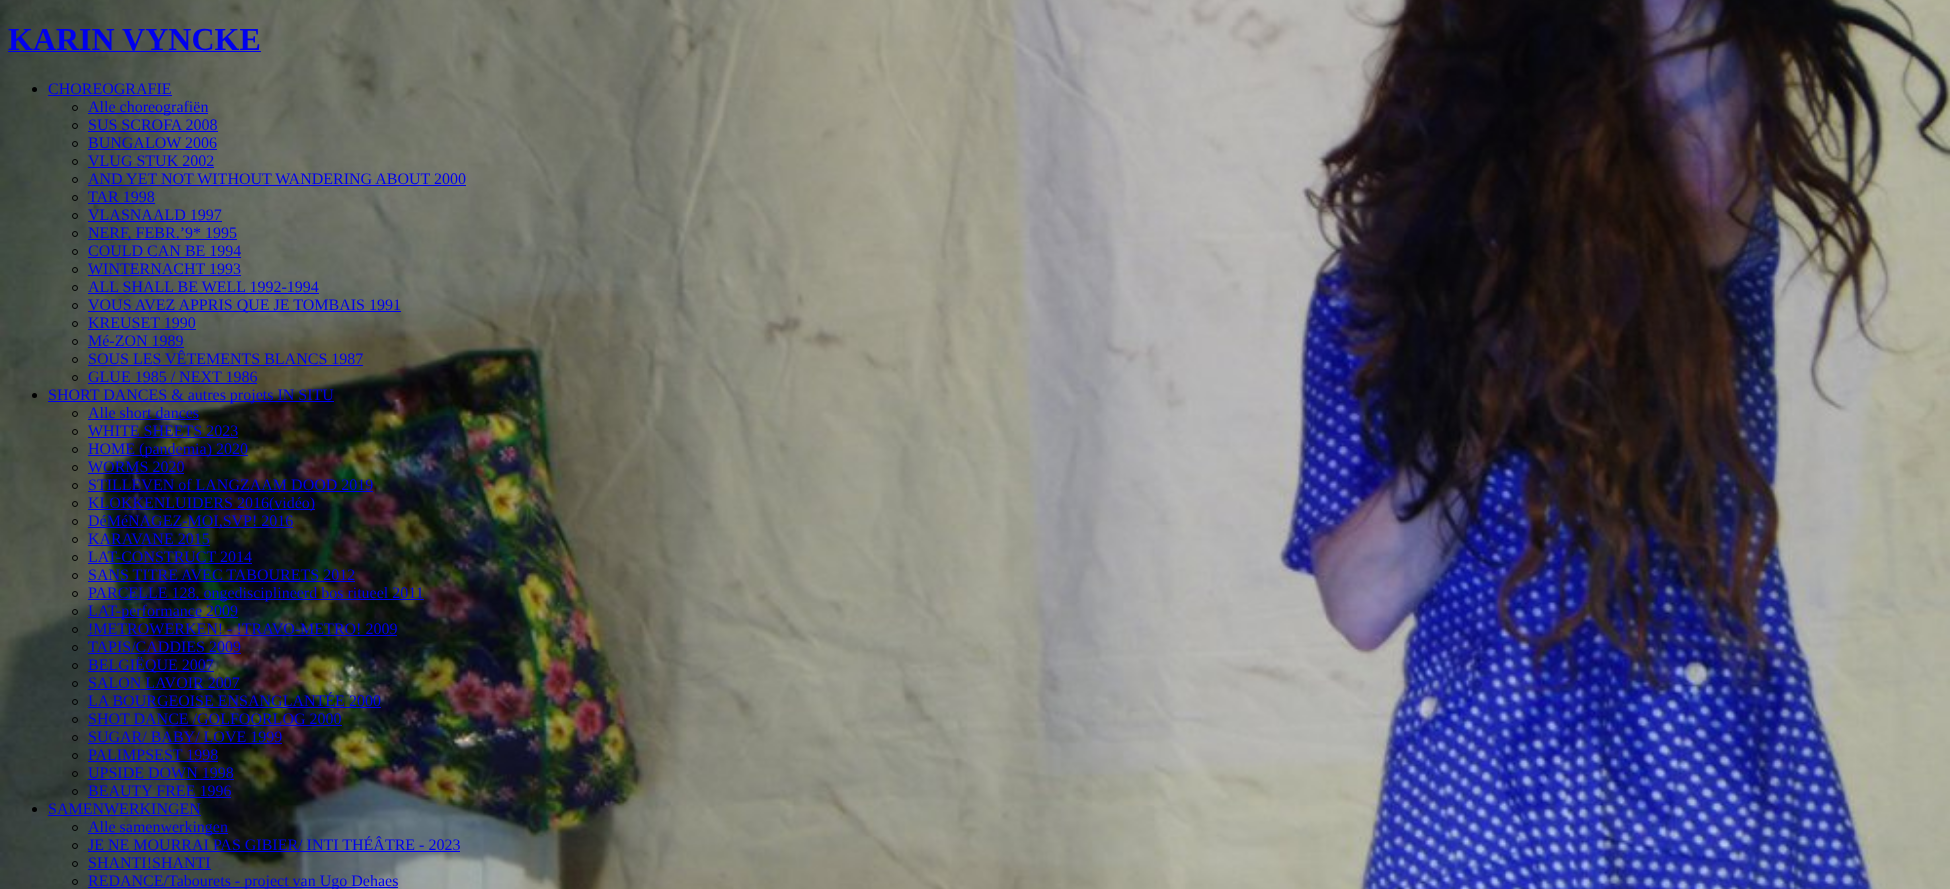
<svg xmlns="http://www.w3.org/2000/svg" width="1950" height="889">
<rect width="100%" height="100%" fill="#fff"/>
<image x="0" y="0" width="1950" height="889" href="media/1.png"/>
<text x="8" y="50" style="font-family:Liberation Serif;font-size:32px;font-weight:bold;fill:#00e">KARIN VYNCKE</text>
<rect x="8" y="51" width="253" height="1" fill="#00e"/>
<circle cx="34.5" cy="89.5" r="2.5" fill="#000"/>
<text x="48" y="94" style="font-family:Liberation Serif;font-size:16px;fill:#00e">CHOREOGRAFIE</text>
<rect x="48" y="95" width="124" height="1" fill="#00e"/>
<circle cx="75" cy="108" r="2.5" fill="none" stroke="#000"/>
<rect x="88" y="113" width="120" height="1" fill="#00e"/>
<text x="88" y="112" style="font-family:Liberation Serif;font-size:16px;fill:#00e">Alle choreografiën</text>
<circle cx="75" cy="126" r="2.5" fill="none" stroke="#000"/>
<text x="88" y="130" style="font-family:Liberation Serif;font-size:16px;fill:#00e">SUS SCROFA 2008</text>
<rect x="88" y="131" width="130" height="1" fill="#00e"/>
<circle cx="75" cy="144" r="2.5" fill="none" stroke="#000"/>
<text x="88" y="148" style="font-family:Liberation Serif;font-size:16px;fill:#00e">BUNGALOW 2006</text>
<rect x="88" y="149" width="129" height="1" fill="#00e"/>
<circle cx="75" cy="162" r="2.5" fill="none" stroke="#000"/>
<text x="88" y="166" style="font-family:Liberation Serif;font-size:16px;fill:#00e">VLUG STUK 2002</text>
<rect x="88" y="167" width="126" height="1" fill="#00e"/>
<circle cx="75" cy="180" r="2.5" fill="none" stroke="#000"/>
<text x="88" y="184" style="font-family:Liberation Serif;font-size:16px;fill:#00e">AND YET NOT WITHOUT WANDERING ABOUT 2000</text>
<rect x="88" y="185" width="378" height="1" fill="#00e"/>
<circle cx="75" cy="198" r="2.5" fill="none" stroke="#000"/>
<text x="88" y="202" style="font-family:Liberation Serif;font-size:16px;fill:#00e">TAR 1998</text>
<rect x="88" y="203" width="67" height="1" fill="#00e"/>
<circle cx="75" cy="216" r="2.5" fill="none" stroke="#000"/>
<text x="88" y="220" style="font-family:Liberation Serif;font-size:16px;fill:#00e">VLASNAALD 1997</text>
<rect x="88" y="221" width="134" height="1" fill="#00e"/>
<circle cx="75" cy="234" r="2.5" fill="none" stroke="#000"/>
<rect x="88" y="239" width="149" height="1" fill="#00e"/>
<text x="88" y="238" style="font-family:Liberation Serif;font-size:16px;fill:#00e">NERF, FEBR.’9* 1995</text>
<circle cx="75" cy="252" r="2.5" fill="none" stroke="#000"/>
<text x="88" y="256" style="font-family:Liberation Serif;font-size:16px;fill:#00e">COULD CAN BE 1994</text>
<rect x="88" y="257" width="153" height="1" fill="#00e"/>
<circle cx="75" cy="270" r="2.5" fill="none" stroke="#000"/>
<text x="88" y="274" style="font-family:Liberation Serif;font-size:16px;fill:#00e">WINTERNACHT 1993</text>
<rect x="88" y="275" width="153" height="1" fill="#00e"/>
<circle cx="75" cy="288" r="2.5" fill="none" stroke="#000"/>
<text x="88" y="292" style="font-family:Liberation Serif;font-size:16px;fill:#00e">ALL SHALL BE WELL 1992-1994</text>
<rect x="88" y="293" width="231" height="1" fill="#00e"/>
<circle cx="75" cy="306" r="2.5" fill="none" stroke="#000"/>
<rect x="88" y="311" width="313" height="1" fill="#00e"/>
<text x="88" y="310" style="font-family:Liberation Serif;font-size:16px;fill:#00e">VOUS AVEZ APPRIS QUE JE TOMBAIS 1991</text>
<circle cx="75" cy="324" r="2.5" fill="none" stroke="#000"/>
<text x="88" y="328" style="font-family:Liberation Serif;font-size:16px;fill:#00e">KREUSET 1990</text>
<rect x="88" y="329" width="108" height="1" fill="#00e"/>
<circle cx="75" cy="342" r="2.5" fill="none" stroke="#000"/>
<text x="88" y="346" style="font-family:Liberation Serif;font-size:16px;fill:#00e">Mé-ZON 1989</text>
<rect x="88" y="347" width="96" height="1" fill="#00e"/>
<circle cx="75" cy="360" r="2.5" fill="none" stroke="#000"/>
<text x="88" y="364" style="font-family:Liberation Serif;font-size:16px;fill:#00e">SOUS LES VÊTEMENTS BLANCS 1987</text>
<rect x="88" y="365" width="275" height="1" fill="#00e"/>
<circle cx="75" cy="378" r="2.5" fill="none" stroke="#000"/>
<text x="88" y="382" style="font-family:Liberation Serif;font-size:16px;fill:#00e">GLUE 1985 / NEXT 1986</text>
<rect x="88" y="383" width="169" height="1" fill="#00e"/>
<circle cx="34.5" cy="395.5" r="2.5" fill="#000"/>
<rect x="48" y="401" width="286" height="1" fill="#00e"/>
<text x="48" y="400" style="font-family:Liberation Serif;font-size:16px;fill:#00e">SHORT DANCES &amp; autres projets IN SITU</text>
<circle cx="75" cy="414" r="2.5" fill="none" stroke="#000"/>
<text x="88" y="418" style="font-family:Liberation Serif;font-size:16px;fill:#00e">Alle short dances</text>
<rect x="88" y="419" width="111" height="1" fill="#00e"/>
<circle cx="75" cy="432" r="2.5" fill="none" stroke="#000"/>
<text x="88" y="436" style="font-family:Liberation Serif;font-size:16px;fill:#00e">WHITE SHEETS 2023</text>
<rect x="88" y="437" width="150" height="1" fill="#00e"/>
<circle cx="75" cy="450" r="2.5" fill="none" stroke="#000"/>
<rect x="88" y="455" width="160" height="1" fill="#00e"/>
<text x="88" y="454" style="font-family:Liberation Serif;font-size:16px;fill:#00e">HOME (pandemia) 2020</text>
<circle cx="75" cy="468" r="2.5" fill="none" stroke="#000"/>
<text x="88" y="472" style="font-family:Liberation Serif;font-size:16px;fill:#00e">WORMS 2020</text>
<rect x="88" y="473" width="96" height="1" fill="#00e"/>
<circle cx="75" cy="486" r="2.5" fill="none" stroke="#000"/>
<text x="88" y="490" style="font-family:Liberation Serif;font-size:16px;fill:#00e">STILLEVEN of LANGZAAM DOOD 2019</text>
<rect x="88" y="491" width="285" height="1" fill="#00e"/>
<circle cx="75" cy="504" r="2.5" fill="none" stroke="#000"/>
<rect x="88" y="509" width="227" height="1" fill="#00e"/>
<text x="88" y="508" style="font-family:Liberation Serif;font-size:16px;fill:#00e">KLOKKENLUIDERS 2016(vidéo)</text>
<circle cx="75" cy="522" r="2.5" fill="none" stroke="#000"/>
<rect x="88" y="527" width="205" height="1" fill="#00e"/>
<text x="88" y="526" style="font-family:Liberation Serif;font-size:16px;fill:#00e">DéMéNAGEZ-MOI,SVP! 2016</text>
<circle cx="75" cy="540" r="2.5" fill="none" stroke="#000"/>
<text x="88" y="544" style="font-family:Liberation Serif;font-size:16px;fill:#00e">KARAVANE 2015</text>
<rect x="88" y="545" width="122" height="1" fill="#00e"/>
<circle cx="75" cy="558" r="2.5" fill="none" stroke="#000"/>
<text x="88" y="562" style="font-family:Liberation Serif;font-size:16px;fill:#00e">LAT-CONSTRUCT 2014</text>
<rect x="88" y="563" width="164" height="1" fill="#00e"/>
<circle cx="75" cy="576" r="2.5" fill="none" stroke="#000"/>
<text x="88" y="580" style="font-family:Liberation Serif;font-size:16px;fill:#00e">SANS TITRE AVEC TABOURETS 2012</text>
<rect x="88" y="581" width="267" height="1" fill="#00e"/>
<circle cx="75" cy="594" r="2.5" fill="none" stroke="#000"/>
<rect x="88" y="599" width="336" height="1" fill="#00e"/>
<text x="88" y="598" style="font-family:Liberation Serif;font-size:16px;fill:#00e">PARCELLE 128, ongedisciplineerd bos ritueel 2011</text>
<circle cx="75" cy="612" r="2.5" fill="none" stroke="#000"/>
<rect x="88" y="617" width="150" height="1" fill="#00e"/>
<text x="88" y="616" style="font-family:Liberation Serif;font-size:16px;fill:#00e">LAT-performance 2009</text>
<circle cx="75" cy="630" r="2.5" fill="none" stroke="#000"/>
<text x="88" y="634" style="font-family:Liberation Serif;font-size:16px;fill:#00e">!METROWERKEN! - !TRAVO-METRO! 2009</text>
<rect x="88" y="635" width="309" height="1" fill="#00e"/>
<circle cx="75" cy="648" r="2.5" fill="none" stroke="#000"/>
<text x="88" y="652" style="font-family:Liberation Serif;font-size:16px;fill:#00e">TAPIS/CADDIES 2009</text>
<rect x="88" y="653" width="153" height="1" fill="#00e"/>
<circle cx="75" cy="666" r="2.5" fill="none" stroke="#000"/>
<rect x="88" y="671" width="126" height="1" fill="#00e"/>
<text x="88" y="670" style="font-family:Liberation Serif;font-size:16px;fill:#00e">BELGIËQUE 2007</text>
<circle cx="75" cy="684" r="2.5" fill="none" stroke="#000"/>
<text x="88" y="688" style="font-family:Liberation Serif;font-size:16px;fill:#00e">SALON LAVOIR 2007</text>
<rect x="88" y="689" width="152" height="1" fill="#00e"/>
<circle cx="75" cy="702" r="2.5" fill="none" stroke="#000"/>
<text x="88" y="706" style="font-family:Liberation Serif;font-size:16px;fill:#00e">LA BOURGEOISE ENSANGLANTÉE 2000</text>
<rect x="88" y="707" width="293" height="1" fill="#00e"/>
<circle cx="75" cy="720" r="2.5" fill="none" stroke="#000"/>
<text x="88" y="724" style="font-family:Liberation Serif;font-size:16px;fill:#00e">SHOT DANCE /GOLFOORLOG 2000</text>
<rect x="88" y="725" width="254" height="1" fill="#00e"/>
<circle cx="75" cy="738" r="2.5" fill="none" stroke="#000"/>
<text x="88" y="742" style="font-family:Liberation Serif;font-size:16px;fill:#00e">SUGAR/ BABY/ LOVE 1999</text>
<rect x="88" y="743" width="194" height="1" fill="#00e"/>
<circle cx="75" cy="756" r="2.5" fill="none" stroke="#000"/>
<text x="88" y="760" style="font-family:Liberation Serif;font-size:16px;fill:#00e">PALIMPSEST 1998</text>
<rect x="88" y="761" width="130" height="1" fill="#00e"/>
<circle cx="75" cy="774" r="2.5" fill="none" stroke="#000"/>
<text x="88" y="778" style="font-family:Liberation Serif;font-size:16px;fill:#00e">UPSIDE DOWN 1998</text>
<rect x="88" y="779" width="146" height="1" fill="#00e"/>
<circle cx="75" cy="792" r="2.5" fill="none" stroke="#000"/>
<text x="88" y="796" style="font-family:Liberation Serif;font-size:16px;fill:#00e">BEAUTY FREE 1996</text>
<rect x="88" y="797" width="143" height="1" fill="#00e"/>
<circle cx="34.5" cy="809.5" r="2.5" fill="#000"/>
<text x="48" y="814" style="font-family:Liberation Serif;font-size:16px;fill:#00e">SAMENWERKINGEN</text>
<rect x="48" y="815" width="153" height="1" fill="#00e"/>
<circle cx="75" cy="828" r="2.5" fill="none" stroke="#000"/>
<rect x="88" y="833" width="140" height="1" fill="#00e"/>
<text x="88" y="832" style="font-family:Liberation Serif;font-size:16px;fill:#00e">Alle samenwerkingen</text>
<circle cx="75" cy="846" r="2.5" fill="none" stroke="#000"/>
<text x="88" y="850" style="font-family:Liberation Serif;font-size:16px;fill:#00e">JE NE MOURRAI PAS GIBIER/ INTI THÉÂTRE - 2023</text>
<rect x="88" y="851" width="372" height="1" fill="#00e"/>
<circle cx="75" cy="864" r="2.5" fill="none" stroke="#000"/>
<text x="88" y="868" style="font-family:Liberation Serif;font-size:16px;fill:#00e">SHANTI!SHANTI</text>
<rect x="88" y="869" width="123" height="1" fill="#00e"/>
<circle cx="75" cy="882" r="2.5" fill="none" stroke="#000"/>
<rect x="88" y="887" width="310" height="1" fill="#00e"/>
<text x="88" y="886" style="font-family:Liberation Serif;font-size:16px;fill:#00e">REDANCE/Tabourets - project van Ugo Dehaes</text>
</svg>
